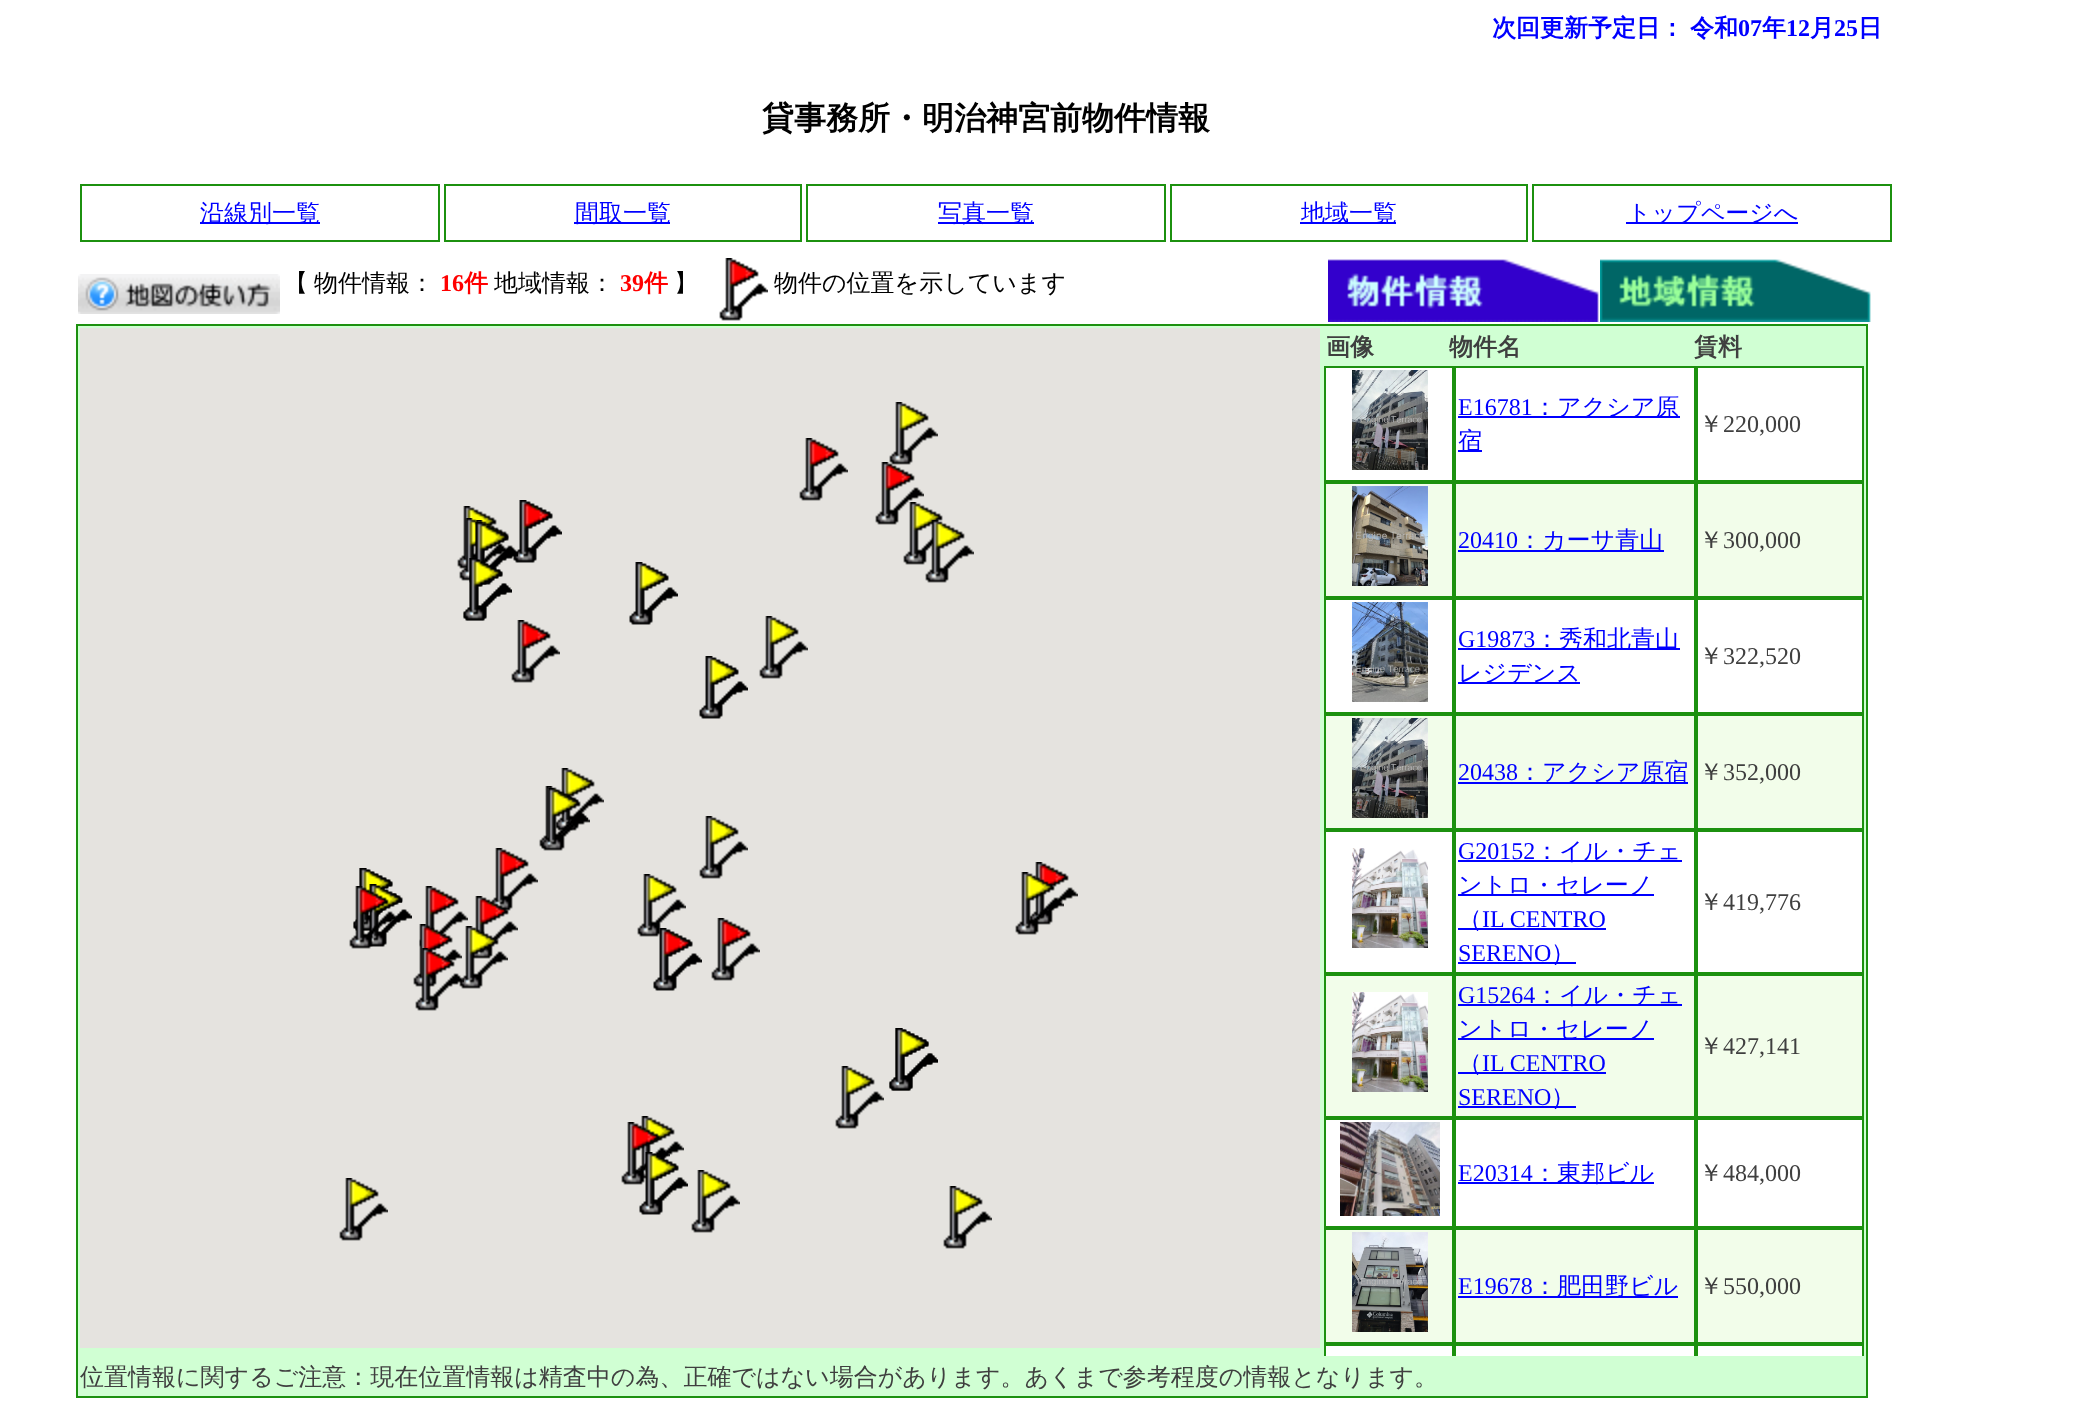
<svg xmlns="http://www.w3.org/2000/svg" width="2095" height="1405">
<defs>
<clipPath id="clip1"><rect x="1324" y="366" width="540" height="990"/></clipPath>
</defs>
<rect width="100%" height="100%" fill="#fff"/>
<text x="1492" y="36" style="font-family:WenQuanYi Zen Hei;font-size:24px;font-weight:bold;fill:#00f">次回更新予定日：</text>
<text x="1690" y="36" style="font-family:WenQuanYi Zen Hei;font-size:24px;font-weight:bold;fill:#00f">令和</text>
<text x="1738" y="36" style="font-family:Liberation Serif;font-size:24px;font-weight:bold;fill:#00f">07</text>
<text x="1762" y="36" style="font-family:WenQuanYi Zen Hei;font-size:24px;font-weight:bold;fill:#00f">年</text>
<text x="1786" y="36" style="font-family:Liberation Serif;font-size:24px;font-weight:bold;fill:#00f">12</text>
<text x="1810" y="36" style="font-family:WenQuanYi Zen Hei;font-size:24px;font-weight:bold;fill:#00f">月</text>
<text x="1834" y="36" style="font-family:Liberation Serif;font-size:24px;font-weight:bold;fill:#00f">25</text>
<text x="1858" y="36" style="font-family:WenQuanYi Zen Hei;font-size:24px;font-weight:bold;fill:#00f">日</text>
<text x="762" y="129" style="font-family:WenQuanYi Zen Hei;font-size:32px;font-weight:bold;fill:#000">貸事務所・明治神宮前物件情報</text>
<rect x="81" y="185" width="358" height="56" fill="none" stroke="#1c910f" stroke-width="2"/>
<rect x="200" y="222" width="120" height="2" fill="#00f"/>
<text x="200" y="221" style="font-family:WenQuanYi Zen Hei;font-size:24px;font-weight:500;fill:#00f">沿線別一覧</text>
<rect x="445" y="185" width="356" height="56" fill="none" stroke="#1c910f" stroke-width="2"/>
<rect x="574" y="222" width="96" height="2" fill="#00f"/>
<text x="575" y="221" style="font-family:WenQuanYi Zen Hei;font-size:24px;font-weight:500;fill:#00f">間取一覧</text>
<rect x="807" y="185" width="358" height="56" fill="none" stroke="#1c910f" stroke-width="2"/>
<rect x="938" y="222" width="96" height="2" fill="#00f"/>
<text x="938" y="221" style="font-family:WenQuanYi Zen Hei;font-size:24px;font-weight:500;fill:#00f">写真一覧</text>
<rect x="1171" y="185" width="356" height="56" fill="none" stroke="#1c910f" stroke-width="2"/>
<rect x="1300" y="222" width="96" height="2" fill="#00f"/>
<text x="1301" y="221" style="font-family:WenQuanYi Zen Hei;font-size:24px;font-weight:500;fill:#00f">地域一覧</text>
<rect x="1533" y="185" width="358" height="56" fill="none" stroke="#1c910f" stroke-width="2"/>
<rect x="1626" y="222" width="172" height="2" fill="#00f"/>
<text x="1627" y="221" style="font-family:WenQuanYi Zen Hei;font-size:24px;font-weight:500;fill:#00f">トップページへ</text>
<image x="78" y="274" width="202" height="40" href="media/1.png"/>
<text x="284" y="291" style="font-family:WenQuanYi Zen Hei;font-size:24px;font-weight:500;fill:#000">【</text>
<text x="314" y="291" style="font-family:WenQuanYi Zen Hei;font-size:24px;font-weight:500;fill:#000">物件情報：</text>
<text x="440" y="291" style="font-family:Liberation Serif;font-size:24px;font-weight:bold;fill:#f00">16</text>
<text x="464" y="291" style="font-family:WenQuanYi Zen Hei;font-size:24px;font-weight:bold;fill:#f00">件</text>
<text x="494" y="291" style="font-family:WenQuanYi Zen Hei;font-size:24px;font-weight:500;fill:#000">地域情報：</text>
<text x="620" y="291" style="font-family:Liberation Serif;font-size:24px;font-weight:bold;fill:#f00">39</text>
<text x="644" y="291" style="font-family:WenQuanYi Zen Hei;font-size:24px;font-weight:bold;fill:#f00">件</text>
<text x="674" y="291" style="font-family:WenQuanYi Zen Hei;font-size:24px;font-weight:500;fill:#000">】</text>
<image x="719" y="258" width="49" height="63" href="media/2.png"/>
<text x="774" y="291" style="font-family:WenQuanYi Zen Hei;font-size:24px;font-weight:500;fill:#000">物件の位置を示しています</text>
<image x="1328" y="259" width="271" height="63" href="media/3.png"/>
<image x="1600" y="259" width="271" height="63" href="media/4.png"/>
<rect x="77" y="325" width="1790" height="1072" fill="#d0ffd3" stroke="#1c910f" stroke-width="2"/>
<rect x="80" y="328" width="1240" height="1020" fill="#e5e3df"/>
<image x="799" y="438" width="49" height="63" href="media/5.png"/>
<image x="889" y="402" width="49" height="63" href="media/6.png"/>
<image x="875" y="462" width="49" height="63" href="media/7.png"/>
<image x="513" y="500" width="49" height="63" href="media/5.png"/>
<image x="457" y="506" width="49" height="63" href="media/6.png"/>
<image x="513" y="500" width="49" height="63" href="media/8.png"/>
<image x="903" y="502" width="40" height="63" href="media/9.png"/>
<image x="459" y="518" width="48" height="63" href="media/10.png"/>
<image x="469" y="520" width="49" height="63" href="media/11.png"/>
<image x="925" y="520" width="49" height="63" href="media/12.png"/>
<image x="469" y="522" width="49" height="63" href="media/13.png"/>
<image x="469" y="522" width="49" height="63" href="media/14.png"/>
<image x="463" y="558" width="49" height="63" href="media/15.png"/>
<image x="463" y="558" width="49" height="63" href="media/16.png"/>
<image x="463" y="558" width="49" height="63" href="media/17.png"/>
<image x="629" y="562" width="49" height="63" href="media/6.png"/>
<image x="629" y="562" width="49" height="63" href="media/18.png"/>
<image x="511" y="620" width="49" height="63" href="media/5.png"/>
<image x="699" y="656" width="49" height="63" href="media/6.png"/>
<image x="759" y="616" width="49" height="63" href="media/6.png"/>
<image x="699" y="656" width="49" height="63" href="media/18.png"/>
<image x="555" y="768" width="49" height="63" href="media/6.png"/>
<image x="539" y="786" width="49" height="63" href="media/19.png"/>
<image x="353" y="868" width="49" height="63" href="media/6.png"/>
<image x="489" y="848" width="49" height="63" href="media/5.png"/>
<image x="541" y="788" width="49" height="63" href="media/20.png"/>
<image x="699" y="816" width="49" height="63" href="media/6.png"/>
<image x="1029" y="862" width="49" height="63" href="media/5.png"/>
<image x="353" y="868" width="49" height="63" href="media/18.png"/>
<image x="353" y="868" width="49" height="63" href="media/21.png"/>
<image x="637" y="874" width="49" height="63" href="media/6.png"/>
<image x="1015" y="872" width="49" height="63" href="media/22.png"/>
<image x="367" y="884" width="45" height="63" href="media/23.png"/>
<image x="367" y="884" width="45" height="63" href="media/24.png"/>
<image x="349" y="886" width="48" height="63" href="media/25.png"/>
<image x="419" y="886" width="49" height="63" href="media/5.png"/>
<image x="473" y="896" width="45" height="63" href="media/26.png"/>
<image x="711" y="918" width="49" height="63" href="media/5.png"/>
<image x="413" y="924" width="49" height="63" href="media/27.png"/>
<image x="459" y="926" width="49" height="63" href="media/28.png"/>
<image x="653" y="928" width="49" height="63" href="media/29.png"/>
<image x="415" y="948" width="49" height="63" href="media/30.png"/>
<image x="653" y="928" width="49" height="63" href="media/31.png"/>
<image x="889" y="1028" width="49" height="63" href="media/6.png"/>
<image x="889" y="1028" width="49" height="63" href="media/18.png"/>
<image x="889" y="1028" width="49" height="63" href="media/21.png"/>
<image x="889" y="1028" width="49" height="63" href="media/32.png"/>
<image x="835" y="1066" width="49" height="63" href="media/6.png"/>
<image x="635" y="1116" width="49" height="63" href="media/6.png"/>
<image x="621" y="1122" width="49" height="63" href="media/33.png"/>
<image x="639" y="1152" width="49" height="63" href="media/34.png"/>
<image x="339" y="1178" width="49" height="63" href="media/6.png"/>
<image x="639" y="1152" width="49" height="63" href="media/35.png"/>
<image x="691" y="1170" width="49" height="63" href="media/6.png"/>
<image x="943" y="1186" width="49" height="63" href="media/6.png"/>
<text x="1326" y="355" style="font-family:WenQuanYi Zen Hei;font-size:24px;font-weight:bold;fill:#3f3f3f">画像</text>
<text x="1449" y="355" style="font-family:WenQuanYi Zen Hei;font-size:24px;font-weight:bold;fill:#3f3f3f">物件名</text>
<text x="1694" y="355" style="font-family:WenQuanYi Zen Hei;font-size:24px;font-weight:bold;fill:#3f3f3f">賃料</text>
<rect x="1325" y="367" width="128" height="114" fill="#fff" stroke="#1c910f" stroke-width="2"/>
<image x="1352" y="370" width="76" height="100" href="media/36.png"/>
<rect x="1455" y="367" width="240" height="114" fill="#fff" stroke="#1c910f" stroke-width="2"/>
<text x="1458" y="415" style="font-family:Liberation Serif;font-size:24px;fill:#00f">E16781</text>
<rect x="1458" y="416" width="222" height="2" fill="#00f"/>
<text x="1533" y="415" style="font-family:WenQuanYi Zen Hei;font-size:24px;font-weight:500;fill:#00f">：アクシア原</text>
<rect x="1458" y="450" width="24" height="2" fill="#00f"/>
<text x="1458" y="449" style="font-family:WenQuanYi Zen Hei;font-size:24px;font-weight:500;fill:#00f">宿</text>
<rect x="1697" y="367" width="166" height="114" fill="#fff" stroke="#1c910f" stroke-width="2"/>
<text x="1699" y="432" style="font-family:WenQuanYi Zen Hei;font-size:24px;font-weight:500;fill:#3f3f3f">￥</text>
<text x="1723" y="432" style="font-family:Liberation Serif;font-size:24px;fill:#3f3f3f">220,000</text>
<rect x="1325" y="483" width="128" height="114" fill="#f2fdea" stroke="#1c910f" stroke-width="2"/>
<image x="1352" y="486" width="76" height="100" href="media/37.png"/>
<rect x="1455" y="483" width="240" height="114" fill="#f2fdea" stroke="#1c910f" stroke-width="2"/>
<text x="1458" y="548" style="font-family:Liberation Serif;font-size:24px;fill:#00f">20410</text>
<rect x="1458" y="550" width="206" height="2" fill="#00f"/>
<text x="1518" y="548" style="font-family:WenQuanYi Zen Hei;font-size:24px;font-weight:500;fill:#00f">：カーサ青山</text>
<rect x="1697" y="483" width="166" height="114" fill="#f2fdea" stroke="#1c910f" stroke-width="2"/>
<text x="1699" y="548" style="font-family:WenQuanYi Zen Hei;font-size:24px;font-weight:500;fill:#3f3f3f">￥</text>
<text x="1723" y="548" style="font-family:Liberation Serif;font-size:24px;fill:#3f3f3f">300,000</text>
<rect x="1325" y="599" width="128" height="114" fill="#fff" stroke="#1c910f" stroke-width="2"/>
<image x="1352" y="602" width="76" height="100" href="media/38.png"/>
<rect x="1455" y="599" width="240" height="114" fill="#fff" stroke="#1c910f" stroke-width="2"/>
<text x="1458" y="647" style="font-family:Liberation Serif;font-size:24px;fill:#00f">G19873</text>
<rect x="1458" y="648" width="222" height="2" fill="#00f"/>
<text x="1535" y="647" style="font-family:WenQuanYi Zen Hei;font-size:24px;font-weight:500;fill:#00f">：秀和北青山</text>
<rect x="1458" y="682" width="122" height="2" fill="#00f"/>
<text x="1458" y="681" style="font-family:WenQuanYi Zen Hei;font-size:24px;font-weight:500;fill:#00f">レジデンス</text>
<rect x="1697" y="599" width="166" height="114" fill="#fff" stroke="#1c910f" stroke-width="2"/>
<text x="1699" y="664" style="font-family:WenQuanYi Zen Hei;font-size:24px;font-weight:500;fill:#3f3f3f">￥</text>
<text x="1723" y="664" style="font-family:Liberation Serif;font-size:24px;fill:#3f3f3f">322,520</text>
<rect x="1325" y="715" width="128" height="114" fill="#f2fdea" stroke="#1c910f" stroke-width="2"/>
<image x="1352" y="718" width="76" height="100" href="media/36.png"/>
<rect x="1455" y="715" width="240" height="114" fill="#f2fdea" stroke="#1c910f" stroke-width="2"/>
<text x="1458" y="780" style="font-family:Liberation Serif;font-size:24px;fill:#00f">20438</text>
<rect x="1458" y="782" width="230" height="2" fill="#00f"/>
<text x="1518" y="780" style="font-family:WenQuanYi Zen Hei;font-size:24px;font-weight:500;fill:#00f">：アクシア原宿</text>
<rect x="1697" y="715" width="166" height="114" fill="#f2fdea" stroke="#1c910f" stroke-width="2"/>
<text x="1699" y="780" style="font-family:WenQuanYi Zen Hei;font-size:24px;font-weight:500;fill:#3f3f3f">￥</text>
<text x="1723" y="780" style="font-family:Liberation Serif;font-size:24px;fill:#3f3f3f">352,000</text>
<rect x="1325" y="831" width="128" height="142" fill="#fff" stroke="#1c910f" stroke-width="2"/>
<image x="1352" y="848" width="76" height="100" href="media/39.png"/>
<rect x="1455" y="831" width="240" height="142" fill="#fff" stroke="#1c910f" stroke-width="2"/>
<text x="1458" y="859" style="font-family:Liberation Serif;font-size:24px;fill:#00f">G20152</text>
<rect x="1458" y="860" width="224" height="2" fill="#00f"/>
<text x="1535" y="859" style="font-family:WenQuanYi Zen Hei;font-size:24px;font-weight:500;fill:#00f">：イル・チェ</text>
<rect x="1458" y="894" width="196" height="2" fill="#00f"/>
<text x="1458" y="893" style="font-family:WenQuanYi Zen Hei;font-size:24px;font-weight:500;fill:#00f">ントロ・セレーノ</text>
<rect x="1458" y="928" width="148" height="2" fill="#00f"/>
<text x="1458" y="927" style="font-family:WenQuanYi Zen Hei;font-size:24px;font-weight:500;fill:#00f">（</text>
<text x="1482" y="927" style="font-family:Liberation Serif;font-size:24px;fill:#00f">IL CENTRO</text>
<text x="1458" y="961" style="font-family:Liberation Serif;font-size:24px;fill:#00f">SERENO</text>
<rect x="1458" y="962" width="118" height="2" fill="#00f"/>
<text x="1551" y="961" style="font-family:WenQuanYi Zen Hei;font-size:24px;font-weight:500;fill:#00f">）</text>
<rect x="1697" y="831" width="166" height="142" fill="#fff" stroke="#1c910f" stroke-width="2"/>
<text x="1699" y="910" style="font-family:WenQuanYi Zen Hei;font-size:24px;font-weight:500;fill:#3f3f3f">￥</text>
<text x="1723" y="910" style="font-family:Liberation Serif;font-size:24px;fill:#3f3f3f">419,776</text>
<rect x="1325" y="975" width="128" height="142" fill="#f2fdea" stroke="#1c910f" stroke-width="2"/>
<image x="1352" y="992" width="76" height="100" href="media/40.png"/>
<rect x="1455" y="975" width="240" height="142" fill="#f2fdea" stroke="#1c910f" stroke-width="2"/>
<text x="1458" y="1003" style="font-family:Liberation Serif;font-size:24px;fill:#00f">G15264</text>
<rect x="1458" y="1004" width="224" height="2" fill="#00f"/>
<text x="1535" y="1003" style="font-family:WenQuanYi Zen Hei;font-size:24px;font-weight:500;fill:#00f">：イル・チェ</text>
<rect x="1458" y="1038" width="196" height="2" fill="#00f"/>
<text x="1458" y="1037" style="font-family:WenQuanYi Zen Hei;font-size:24px;font-weight:500;fill:#00f">ントロ・セレーノ</text>
<rect x="1458" y="1072" width="148" height="2" fill="#00f"/>
<text x="1458" y="1071" style="font-family:WenQuanYi Zen Hei;font-size:24px;font-weight:500;fill:#00f">（</text>
<text x="1482" y="1071" style="font-family:Liberation Serif;font-size:24px;fill:#00f">IL CENTRO</text>
<text x="1458" y="1105" style="font-family:Liberation Serif;font-size:24px;fill:#00f">SERENO</text>
<rect x="1458" y="1106" width="118" height="2" fill="#00f"/>
<text x="1551" y="1105" style="font-family:WenQuanYi Zen Hei;font-size:24px;font-weight:500;fill:#00f">）</text>
<rect x="1697" y="975" width="166" height="142" fill="#f2fdea" stroke="#1c910f" stroke-width="2"/>
<text x="1699" y="1054" style="font-family:WenQuanYi Zen Hei;font-size:24px;font-weight:500;fill:#3f3f3f">￥</text>
<text x="1723" y="1054" style="font-family:Liberation Serif;font-size:24px;fill:#3f3f3f">427,141</text>
<rect x="1325" y="1119" width="128" height="108" fill="#fff" stroke="#1c910f" stroke-width="2"/>
<image x="1340" y="1122" width="100" height="94" href="media/41.png"/>
<rect x="1455" y="1119" width="240" height="108" fill="#fff" stroke="#1c910f" stroke-width="2"/>
<text x="1458" y="1181" style="font-family:Liberation Serif;font-size:24px;fill:#00f">E20314</text>
<rect x="1458" y="1182" width="196" height="2" fill="#00f"/>
<text x="1533" y="1181" style="font-family:WenQuanYi Zen Hei;font-size:24px;font-weight:500;fill:#00f">：東邦ビル</text>
<rect x="1697" y="1119" width="166" height="108" fill="#fff" stroke="#1c910f" stroke-width="2"/>
<text x="1699" y="1181" style="font-family:WenQuanYi Zen Hei;font-size:24px;font-weight:500;fill:#3f3f3f">￥</text>
<text x="1723" y="1181" style="font-family:Liberation Serif;font-size:24px;fill:#3f3f3f">484,000</text>
<rect x="1325" y="1229" width="128" height="114" fill="#f2fdea" stroke="#1c910f" stroke-width="2"/>
<image x="1352" y="1232" width="76" height="100" href="media/42.png"/>
<rect x="1455" y="1229" width="240" height="114" fill="#f2fdea" stroke="#1c910f" stroke-width="2"/>
<text x="1458" y="1294" style="font-family:Liberation Serif;font-size:24px;fill:#00f">E19678</text>
<rect x="1458" y="1296" width="220" height="2" fill="#00f"/>
<text x="1533" y="1294" style="font-family:WenQuanYi Zen Hei;font-size:24px;font-weight:500;fill:#00f">：肥田野ビル</text>
<rect x="1697" y="1229" width="166" height="114" fill="#f2fdea" stroke="#1c910f" stroke-width="2"/>
<text x="1699" y="1294" style="font-family:WenQuanYi Zen Hei;font-size:24px;font-weight:500;fill:#3f3f3f">￥</text>
<text x="1723" y="1294" style="font-family:Liberation Serif;font-size:24px;fill:#3f3f3f">550,000</text>
<rect x="1326" y="1346" width="126" height="10" fill="#fff"/>
<text x="80" y="1385" style="font-family:WenQuanYi Zen Hei;font-size:24px;font-weight:500;fill:#3f3f3f">位置情報に関するご注意：現在位置情報は精査中の為、正確ではない場合があります。あくまで参考程度の情報となります。</text>
<g clip-path="url(#clip1)">
<rect x="1325" y="1345" width="128" height="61" fill="none" stroke="#1c910f" stroke-width="2"/>
</g>
<rect x="1456" y="1346" width="238" height="10" fill="#fff"/>
<g clip-path="url(#clip1)">
<rect x="1455" y="1345" width="240" height="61" fill="none" stroke="#1c910f" stroke-width="2"/>
</g>
<rect x="1698" y="1346" width="164" height="10" fill="#fff"/>
<g clip-path="url(#clip1)">
<rect x="1697" y="1345" width="166" height="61" fill="none" stroke="#1c910f" stroke-width="2"/>
</g>
</svg>
